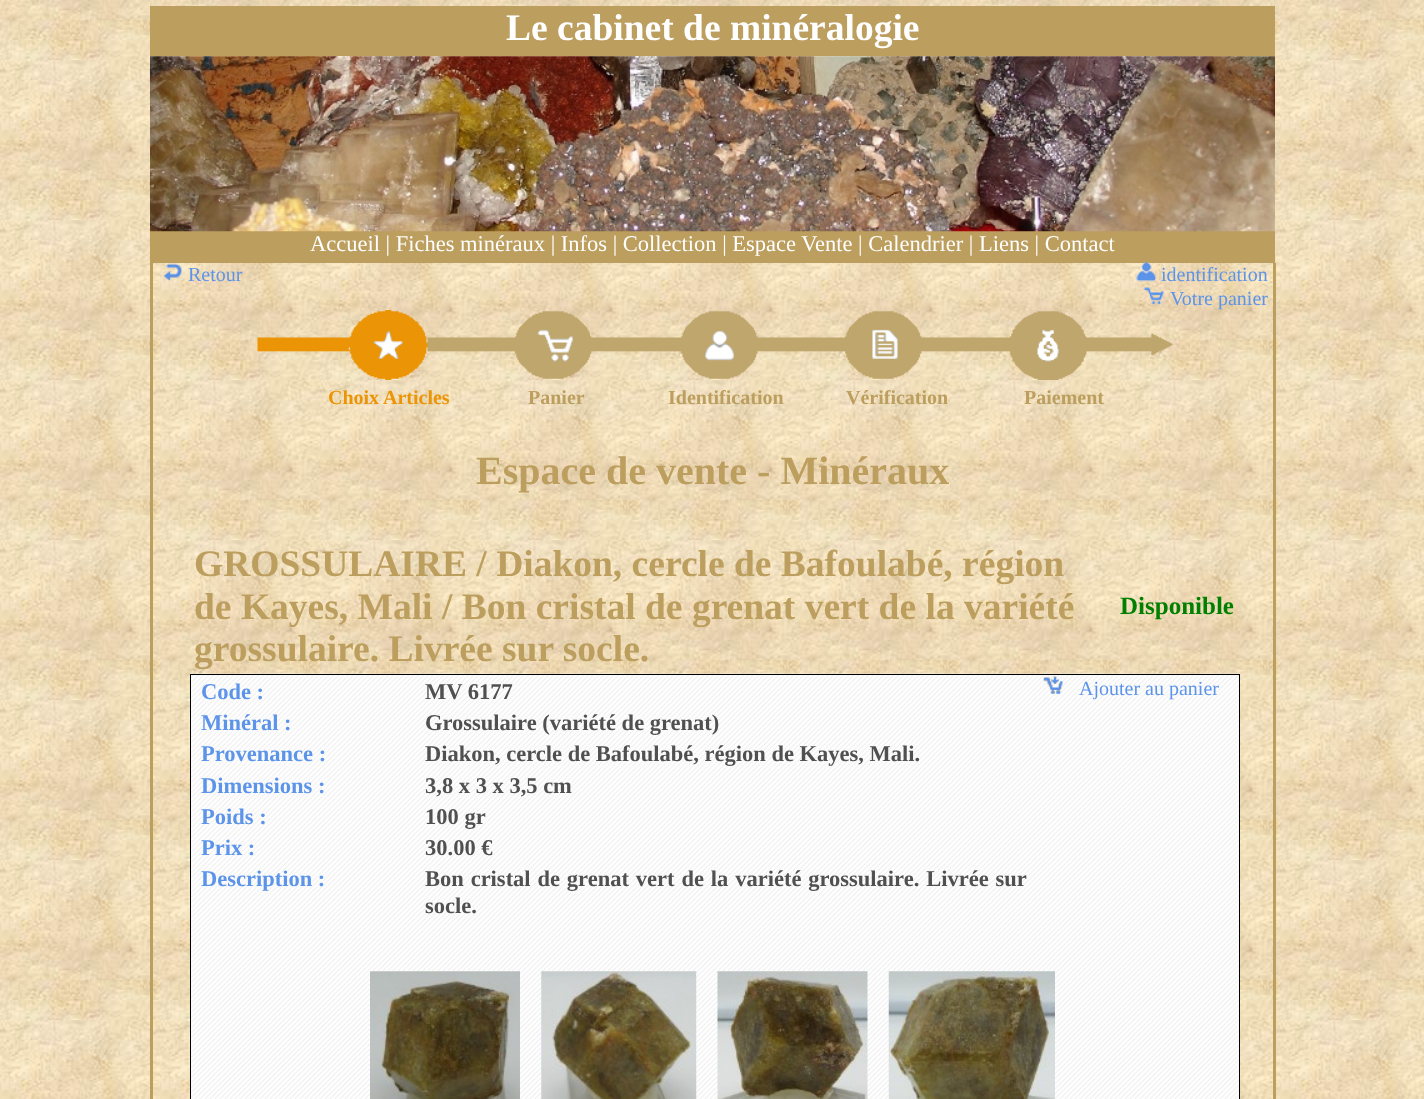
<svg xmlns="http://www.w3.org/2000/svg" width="1424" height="1099">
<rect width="100%" height="100%" fill="#fff"/>
<image x="0" y="0" width="1424" height="1099" href="media/1.png"/>
<rect x="150" y="6" width="1125" height="50" fill="#bc9e5e"/>
<text x="506" y="40" style="font-family:Liberation Serif;font-size:37.5px;font-weight:bold;fill:#fff">Le cabinet de minéralogie</text>
<rect x="150" y="231" width="1125" height="32" fill="#bc9e5e"/>
<image x="150" y="56" width="1125" height="176" href="media/2.png"/>
<text x="310" y="251" style="font-family:Liberation Serif;font-size:22.5px;fill:#fff">Accueil | Fiches minéraux | Infos | Collection | Espace Vente | Calendrier | Liens | Contact</text>
<rect x="1273" y="263" width="3" height="836" fill="#bc9e5e"/>
<rect x="150" y="263" width="3" height="836" fill="#bc9e5e"/>
<image x="163" y="263" width="20" height="19" href="media/3.png"/>
<text x="188" y="281" style="font-family:Liberation Serif;font-size:20px;fill:#5c94ea">Retour</text>
<image x="1136" y="262" width="21" height="20" href="media/4.png"/>
<text x="1161" y="281" style="font-family:Liberation Serif;font-size:20px;fill:#5c94ea">identification</text>
<image x="1143" y="287" width="21" height="18" href="media/5.png"/>
<text x="1170" y="305" style="font-family:Liberation Serif;font-size:20px;fill:#5c94ea">Votre panier</text>
<image x="257" y="310" width="916" height="70" href="media/6.png"/>
<image x="373" y="331" width="30" height="28" href="media/7.png"/>
<image x="537" y="329" width="36" height="33" href="media/8.png"/>
<image x="705" y="331" width="29" height="30" href="media/9.png"/>
<image x="872" y="329" width="26" height="30" href="media/10.png"/>
<image x="1037" y="329" width="22" height="33" href="media/11.png"/>
<text x="328" y="404" style="font-family:Liberation Serif;font-size:20px;font-weight:bold;fill:#eb9506">Choix Articles</text>
<text x="528" y="404" style="font-family:Liberation Serif;font-size:20px;font-weight:bold;fill:#bc9e5e">Panier</text>
<text x="668" y="404" style="font-family:Liberation Serif;font-size:20px;font-weight:bold;fill:#bc9e5e">Identification</text>
<text x="846" y="404" style="font-family:Liberation Serif;font-size:20px;font-weight:bold;fill:#bc9e5e">Vérification</text>
<text x="1024" y="404" style="font-family:Liberation Serif;font-size:20px;font-weight:bold;fill:#bc9e5e">Paiement</text>
<text x="476" y="484" style="font-family:Liberation Serif;font-size:40px;font-weight:bold;fill:#bc9e5e">Espace de vente - Minéraux</text>
<text x="194" y="576" style="font-family:Liberation Serif;font-size:37.5px;font-weight:bold;fill:#bc9e5e">GROSSULAIRE / Diakon, cercle de Bafoulabé, région</text>
<text x="194" y="619" style="font-family:Liberation Serif;font-size:37.5px;font-weight:bold;fill:#bc9e5e">de Kayes, Mali / Bon cristal de grenat vert de la variété</text>
<text x="194" y="661" style="font-family:Liberation Serif;font-size:37.5px;font-weight:bold;fill:#bc9e5e">grossulaire. Livrée sur socle.</text>
<text x="1120" y="614" style="font-family:Liberation Serif;font-size:25px;font-weight:bold;fill:#008000">Disponible</text>
<image x="190" y="673" width="1050" height="426" href="media/12.png"/>
<rect x="190.5" y="674.5" width="1049" height="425" fill="none" stroke="#000"/>
<text x="201" y="699" style="font-family:Liberation Serif;font-size:22.5px;font-weight:bold;fill:#5c94ea">Code :</text>
<text x="425" y="699" style="font-family:Liberation Serif;font-size:22.5px;font-weight:bold;fill:#505050">MV 6177</text>
<text x="201" y="730" style="font-family:Liberation Serif;font-size:22.5px;font-weight:bold;fill:#5c94ea">Minéral :</text>
<text x="425" y="730" style="font-family:Liberation Serif;font-size:22.5px;font-weight:bold;fill:#505050">Grossulaire (variété de grenat)</text>
<text x="201" y="761" style="font-family:Liberation Serif;font-size:22.5px;font-weight:bold;fill:#5c94ea">Provenance :</text>
<text x="425" y="761" style="font-family:Liberation Serif;font-size:22.5px;font-weight:bold;fill:#505050">Diakon, cercle de Bafoulabé, région de Kayes, Mali.</text>
<text x="201" y="793" style="font-family:Liberation Serif;font-size:22.5px;font-weight:bold;fill:#5c94ea">Dimensions :</text>
<text x="425" y="793" style="font-family:Liberation Serif;font-size:22.5px;font-weight:bold;fill:#505050">3,8 x 3 x 3,5 cm</text>
<text x="201" y="824" style="font-family:Liberation Serif;font-size:22.5px;font-weight:bold;fill:#5c94ea">Poids :</text>
<text x="425" y="824" style="font-family:Liberation Serif;font-size:22.5px;font-weight:bold;fill:#505050">100 gr</text>
<text x="201" y="855" style="font-family:Liberation Serif;font-size:22.5px;font-weight:bold;fill:#5c94ea">Prix :</text>
<text x="425" y="855" style="font-family:Liberation Serif;font-size:22.5px;font-weight:bold;fill:#505050">30.00 €</text>
<text x="201" y="886" style="font-family:Liberation Serif;font-size:22.5px;font-weight:bold;fill:#5c94ea">Description :</text>
<text x="425" y="886" word-spacing="1.25" style="font-family:Liberation Serif;font-size:22.5px;font-weight:bold;fill:#505050">Bon cristal de grenat vert de la variété grossulaire. Livrée sur</text>
<text x="425" y="913" style="font-family:Liberation Serif;font-size:22.5px;font-weight:bold;fill:#505050">socle.</text>
<image x="1043" y="676" width="20" height="18" href="media/13.png"/>
<text x="1079" y="695" style="font-family:Liberation Serif;font-size:20px;fill:#5c94ea">Ajouter au panier</text>
<image x="370" y="971" width="150" height="128" href="media/14.png"/>
<image x="541" y="971" width="156" height="128" href="media/15.png"/>
<image x="717" y="971" width="151" height="128" href="media/16.png"/>
<image x="888" y="971" width="167" height="128" href="media/17.png"/>
</svg>
